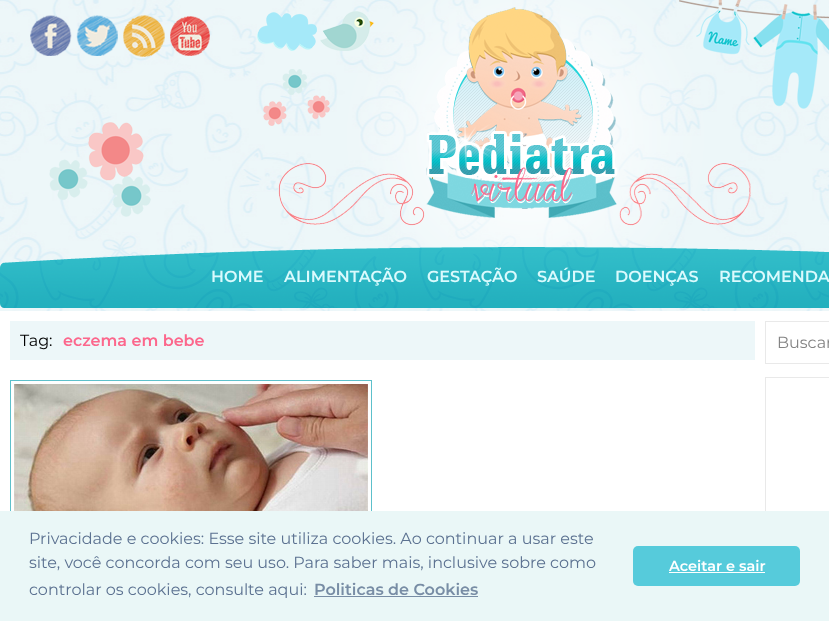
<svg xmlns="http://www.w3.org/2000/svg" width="829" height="621">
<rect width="100%" height="100%" fill="#fff"/>
<image x="0" y="0" width="829" height="311" href="media/1.png"/>
<image x="0" y="0" width="829" height="308" href="media/2.png"/>
<text x="211" y="282" style="font-family:Montserrat;font-size:16px;font-weight:600;fill:#dafafd">HOME</text>
<text x="284" y="282" style="font-family:Montserrat;font-size:16px;font-weight:600;fill:#dafafd">ALIMENTAÇÃO</text>
<text x="427" y="282" style="font-family:Montserrat;font-size:16px;font-weight:600;fill:#dafafd">GESTAÇÃO</text>
<text x="537" y="282" style="font-family:Montserrat;font-size:16px;font-weight:600;fill:#dafafd">SAÚDE</text>
<text x="615" y="282" style="font-family:Montserrat;font-size:16px;font-weight:600;fill:#dafafd">DOENÇAS</text>
<text x="719" y="282" style="font-family:Montserrat;font-size:16px;font-weight:600;fill:#dafafd">RECOMENDA</text>
<rect x="10" y="321" width="745" height="39" fill="#edf7f9"/>
<text x="20" y="346" style="font-family:Montserrat;font-size:16px;fill:#000">Tag:</text>
<text x="63" y="346" style="font-family:Montserrat;font-size:16px;font-weight:600;fill:#fc678c">eczema em bebe</text>
<rect x="10.5" y="380.5" width="361" height="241" fill="none" stroke="#5dc0cb"/>
<image x="14" y="384" width="354" height="127" href="media/3.png"/>
<rect x="765.5" y="321.5" width="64" height="42" fill="none" stroke="#e9e9e9"/>
<text x="777" y="348" style="font-family:Montserrat;font-size:16px;fill:#848484">Buscar</text>
<rect x="765.5" y="377.5" width="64" height="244" fill="none" stroke="#e9e9e9"/>
<rect y="511" width="829" height="110" fill="#eaf7f7"/>
<text x="29" y="544" style="font-family:Montserrat;font-size:16px;fill:#5c7291">Privacidade e cookies: Esse site utiliza cookies. Ao continuar a usar este</text>
<text x="29" y="568" style="font-family:Montserrat;font-size:16px;fill:#5c7291">site, você concorda com seu uso. Para saber mais, inclusive sobre como</text>
<text x="29" y="595" style="font-family:Montserrat;font-size:16px;fill:#5c7291">controlar os cookies, consulte aqui:</text>
<text x="314" y="595" style="font-family:Montserrat;font-size:16px;font-weight:600;fill:#788da5">Politicas de Cookies</text>
<rect x="314" y="596" width="164" height="1" fill="#788da5"/>
<rect x="633" y="546" width="167" height="40" rx="5" fill="#56cbdb"/>
<text x="669" y="571" style="font-family:Montserrat;font-size:14.5px;font-weight:600;fill:#fff">Aceitar e sair</text>
<rect x="669" y="572" width="96" height="1" fill="#fff"/>
</svg>
